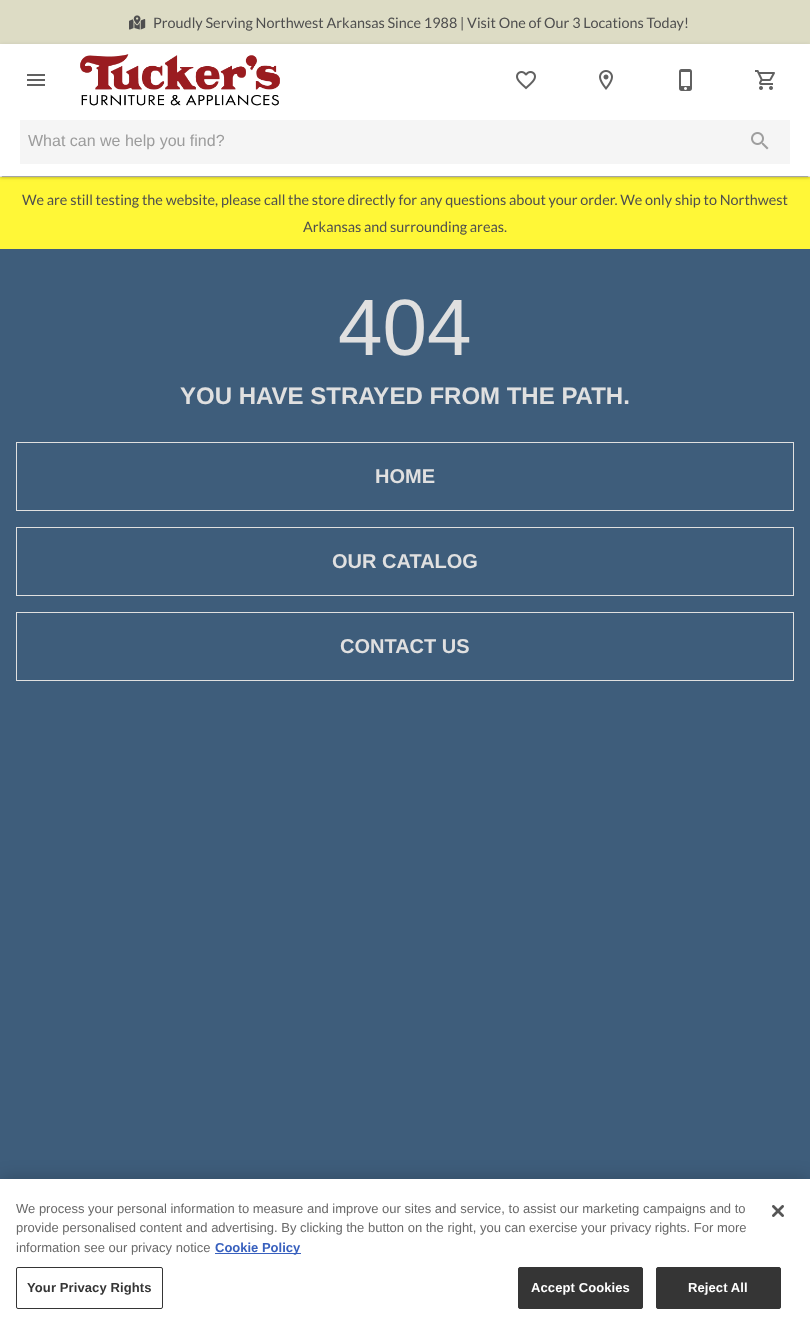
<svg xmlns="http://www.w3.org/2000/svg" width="810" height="1329">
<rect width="100%" height="100%" fill="#fff"/>
<rect width="810" height="44" fill="#dddcc5"/>
<image x="129" y="15" width="17" height="15" href="media/1.png"/>
<text x="153" y="28" style="font-family:Lato;font-size:14.4px;fill:#4f4f4f">Proudly Serving Northwest Arkansas Since 1988 | Visit One of Our 3 Locations Today!</text>
<rect y="177" width="810" height="72" fill="#fff737"/>
<rect y="45" width="810" height="132" fill="#0000001f" filter="blur(2.5px)"/>
<rect y="46" width="810" height="132" fill="#00000024" filter="blur(1px)"/>
<rect x="2" y="49" width="806" height="128" fill="#00000033" filter="blur(0.5px)"/>
<rect y="44" width="810" height="132" fill="#fff"/>
<image x="27" y="74" width="18" height="12" href="media/2.png"/>
<image x="80" y="54" width="200" height="52" href="media/3.png"/>
<image x="516" y="71" width="20" height="19" href="media/4.png"/>
<image x="599" y="70" width="14" height="20" href="media/5.png"/>
<image x="679" y="69" width="13" height="22" href="media/6.png"/>
<image x="755" y="70" width="20" height="20" href="media/7.png"/>
<rect x="20" y="120" width="770" height="44" fill="#f5f5f5"/>
<text x="28" y="146" style="font-family:Liberation Sans;font-size:16px;fill:#9c9c9c">What can we help you find?</text>
<image x="751" y="132" width="18" height="18" href="media/8.png"/>
<text x="22" y="205" style="font-family:Lato;font-size:14.4px;fill:#4f4f4f">We are still testing the website, please call the store directly for any questions about your order. We only ship to Northwest</text>
<text x="303" y="232" style="font-family:Lato;font-size:14.4px;fill:#4f4f4f">Arkansas and surrounding areas.</text>
<rect y="249" width="810" height="930" fill="#3e5d7b"/>
<text x="338" y="355" style="font-family:Liberation Sans;font-size:80px;fill:#e0e0e0">404</text>
<text x="180" y="404" style="font-family:Liberation Sans;font-size:24px;font-weight:bold;fill:#e0e0e0">YOU HAVE STRAYED FROM THE PATH.</text>
<rect x="16.5" y="442.5" width="777" height="68" fill="none" stroke="#e0e0e0"/>
<text x="375" y="483" style="font-family:Liberation Sans;font-size:20px;font-weight:bold;fill:#e0e0e0">HOME</text>
<rect x="16.5" y="527.5" width="777" height="68" fill="none" stroke="#e0e0e0"/>
<text x="332" y="568" style="font-family:Liberation Sans;font-size:20px;font-weight:bold;fill:#e0e0e0">OUR CATALOG</text>
<rect x="16.5" y="612.5" width="777" height="68" fill="none" stroke="#e0e0e0"/>
<text x="340" y="653" style="font-family:Liberation Sans;font-size:20px;font-weight:bold;fill:#e0e0e0">CONTACT US</text>
<rect y="1179" width="810" height="150" fill="#00000033" filter="blur(9px)"/>
<rect y="1179" width="810" height="150" fill="#fff"/>
<text x="16" y="1213" style="font-family:Liberation Sans;font-size:13px;fill:#696969">We process your personal information to measure and improve our sites and service, to assist our marketing campaigns and to</text>
<text x="16" y="1232" style="font-family:Liberation Sans;font-size:13px;fill:#696969">provide personalised content and advertising. By clicking the button on the right, you can exercise your privacy rights. For more</text>
<text x="16" y="1252" style="font-family:Liberation Sans;font-size:13px;fill:#696969">information see our privacy notice</text>
<rect x="215" y="1253" width="86" height="1" fill="#3860be"/>
<text x="215" y="1252" style="font-family:Liberation Sans;font-size:13px;font-weight:bold;fill:#3860be">Cookie Policy</text>
<rect x="16.5" y="1267.5" width="146" height="41" rx="1.5" fill="none" stroke="#353535"/>
<text x="27" y="1292" style="font-family:Liberation Sans;font-size:13px;font-weight:bold;letter-spacing:0.1px;fill:#353535">Your Privacy Rights</text>
<rect x="518.5" y="1267.5" width="124" height="41" rx="1.5" fill="#353535" stroke="#353535"/>
<text x="531" y="1292" style="font-family:Liberation Sans;font-size:13px;font-weight:bold;letter-spacing:0.1px;fill:#fff">Accept Cookies</text>
<rect x="656.5" y="1267.5" width="124" height="41" rx="1.5" fill="#353535" stroke="#353535"/>
<text x="688" y="1292" style="font-family:Liberation Sans;font-size:13px;font-weight:bold;letter-spacing:0.1px;fill:#fff">Reject All</text>
<image x="772" y="1205" width="12" height="12" href="media/9.png"/>
</svg>
